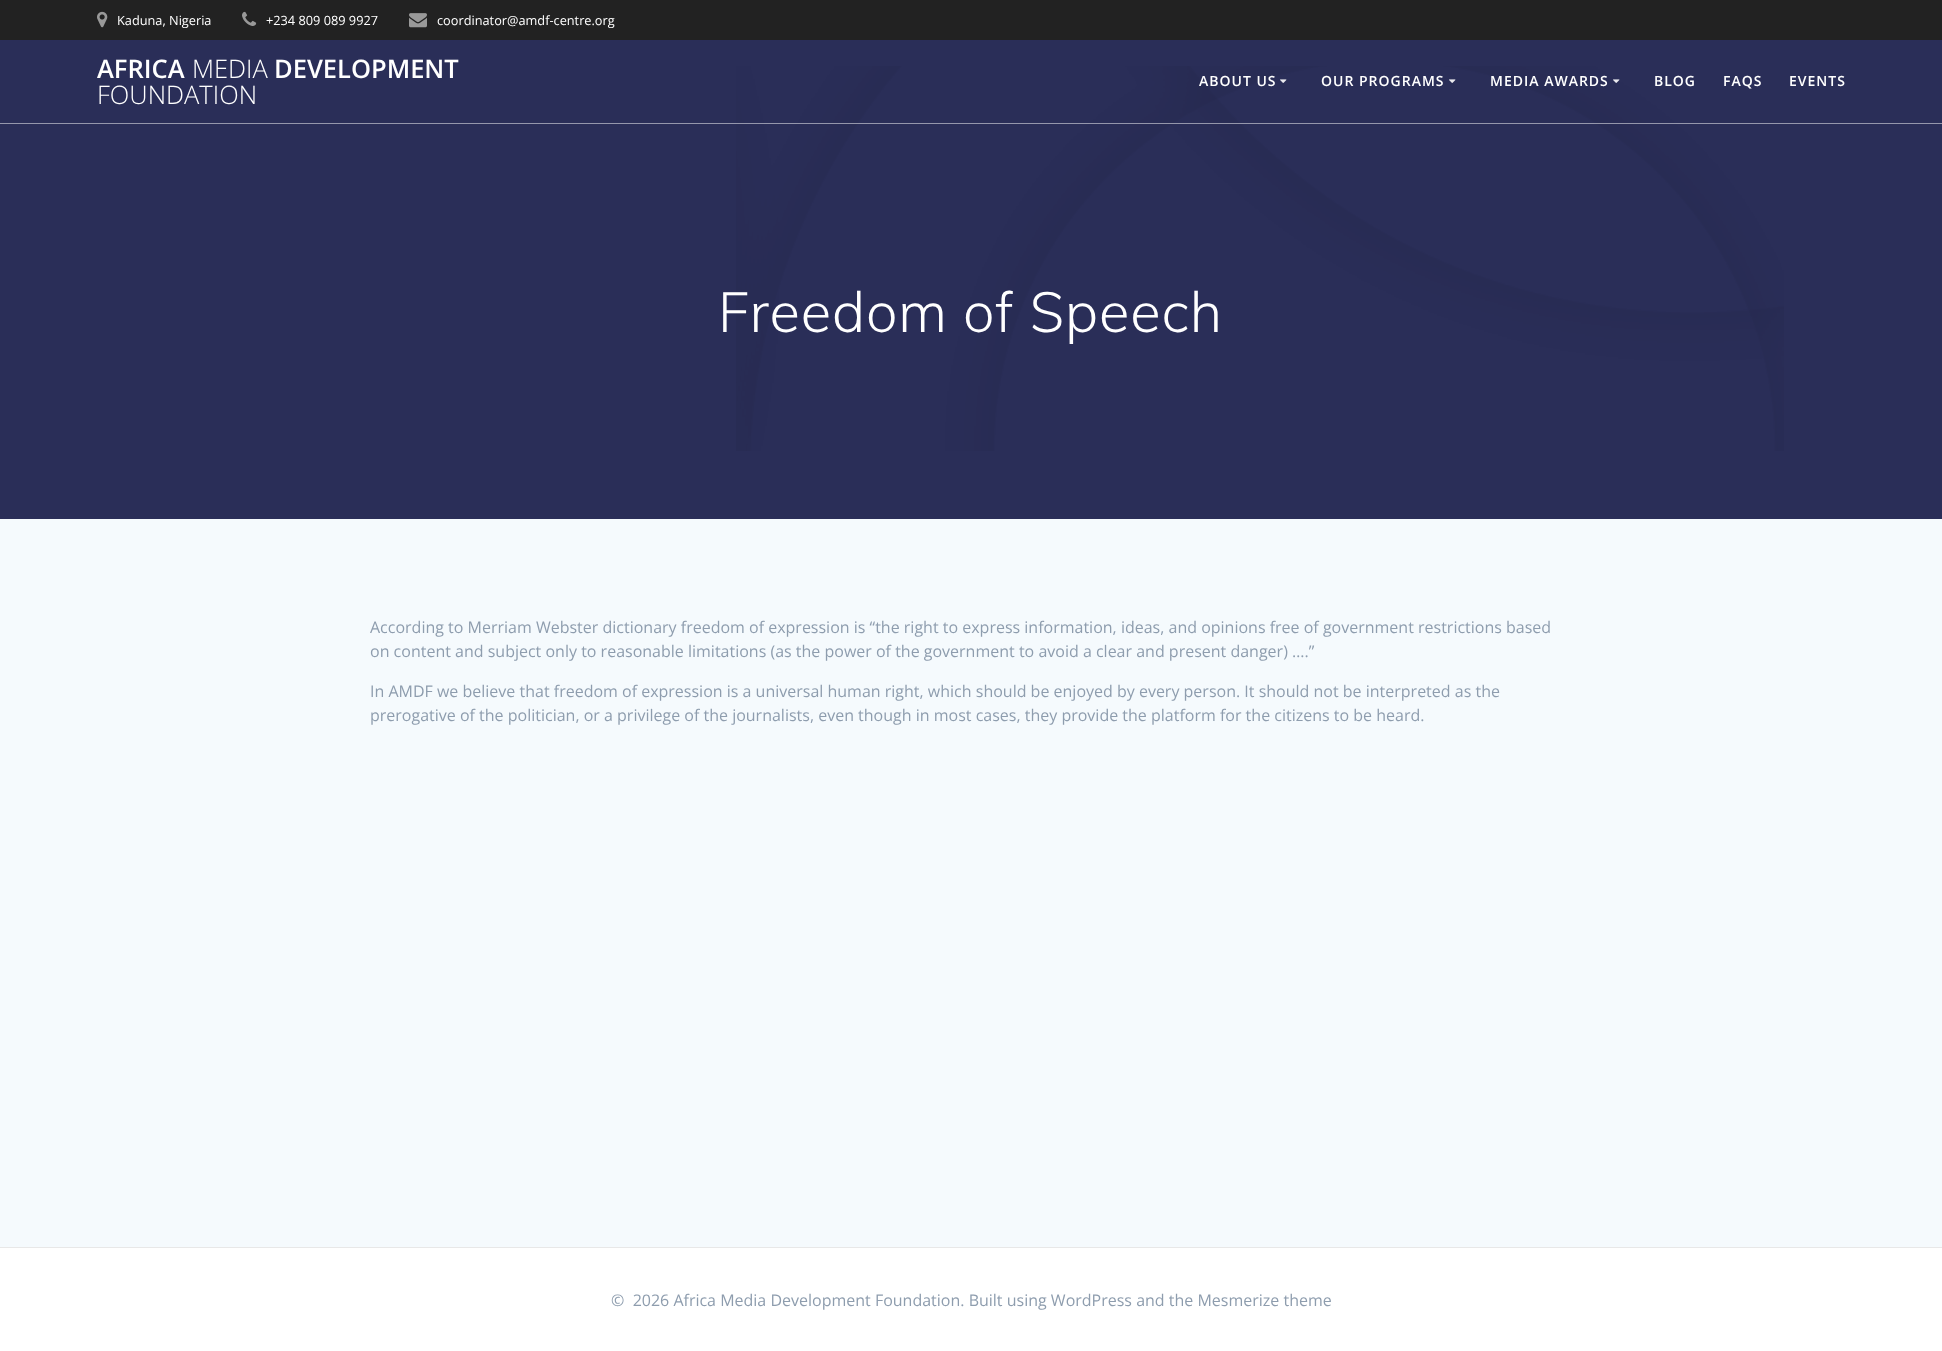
<svg xmlns="http://www.w3.org/2000/svg" width="1942" height="1351">
<rect width="100%" height="100%" fill="#fff"/>
<rect width="1942" height="40" fill="#222"/>
<image x="97" y="11" width="11" height="17" href="media/1.png"/>
<text x="117" y="25" style="font-family:Open Sans;font-size:12.75px;fill:#fff">Kaduna, Nigeria</text>
<image x="242" y="11" width="15" height="15" href="media/2.png"/>
<text x="266" y="25" style="font-family:Open Sans;font-size:12.75px;fill:#fff">+234 809 089 9927</text>
<image x="409" y="13" width="18" height="15" href="media/3.png"/>
<text x="437" y="25" style="font-family:Open Sans;font-size:12.75px;fill:#fff">coordinator@amdf-centre.org</text>
<rect y="40" width="1942" height="479" fill="#2a2e58"/>
<image x="736" y="66" width="1048" height="385" href="media/6.png"/>
<rect y="123" width="1942" height="1" fill="#ffffff80"/>
<text x="97" y="78" style="font-family:Open Sans;font-size:25.5px;font-weight:600;fill:#fff">AFRICA</text>
<text x="192" y="78" style="font-family:Open Sans;font-size:25.5px;font-weight:300;fill:#fff">MEDIA</text>
<text x="274" y="78" style="font-family:Open Sans;font-size:25.5px;font-weight:600;fill:#fff">DEVELOPMENT</text>
<text x="97" y="104" style="font-family:Open Sans;font-size:25.5px;font-weight:300;fill:#fff">FOUNDATION</text>
<text x="1199" y="86" style="font-family:Open Sans;font-size:14px;font-weight:600;letter-spacing:1px;fill:#fff">ABOUT US</text>
<image x="1280" y="79" width="7" height="4" href="media/4.png"/>
<text x="1321" y="86" style="font-family:Open Sans;font-size:14px;font-weight:600;letter-spacing:1px;fill:#fff">OUR PROGRAMS</text>
<image x="1449" y="79" width="7" height="4" href="media/4.png"/>
<text x="1490" y="86" style="font-family:Open Sans;font-size:14px;font-weight:600;letter-spacing:1px;fill:#fff">MEDIA AWARDS</text>
<image x="1613" y="79" width="7" height="4" href="media/5.png"/>
<text x="1654" y="86" style="font-family:Open Sans;font-size:14px;font-weight:600;letter-spacing:1px;fill:#fff">BLOG</text>
<text x="1723" y="86" style="font-family:Open Sans;font-size:14px;font-weight:600;letter-spacing:1px;fill:#fff">FAQS</text>
<text x="1789" y="86" style="font-family:Open Sans;font-size:14px;font-weight:600;letter-spacing:1px;fill:#fff">EVENTS</text>
<text x="718" y="332" style="font-family:Muli;font-size:56px;font-weight:300;letter-spacing:0.9px;fill:#fff">Freedom of Speech</text>
<rect y="519" width="1942" height="728" fill="#f5fafd"/>
<text x="370" y="633" style="font-family:Open Sans;font-size:16px;fill:#8e9dae">According to Merriam Webster dictionary freedom of expression is “the right to express information, ideas, and opinions free of government restrictions based</text>
<text x="370" y="657" style="font-family:Open Sans;font-size:16px;fill:#8e9dae">on content and subject only to reasonable limitations (as the power of the government to avoid a clear and present danger) ….”</text>
<text x="370" y="697" style="font-family:Open Sans;font-size:16px;fill:#8e9dae">In AMDF we believe that freedom of expression is a universal human right, which should be enjoyed by every person. It should not be interpreted as the</text>
<text x="370" y="721" style="font-family:Open Sans;font-size:16px;fill:#8e9dae">prerogative of the politician, or a privilege of the journalists, even though in most cases, they provide the platform for the citizens to be heard.</text>
<rect y="1247" width="1942" height="1" fill="#e8e8e8"/>
<text x="611" y="1306" style="font-family:Open Sans;font-size:16px;fill:#8e9dae" xml:space="preserve">©  2026 Africa Media Development Foundation. Built using WordPress and the Mesmerize theme</text>
</svg>
